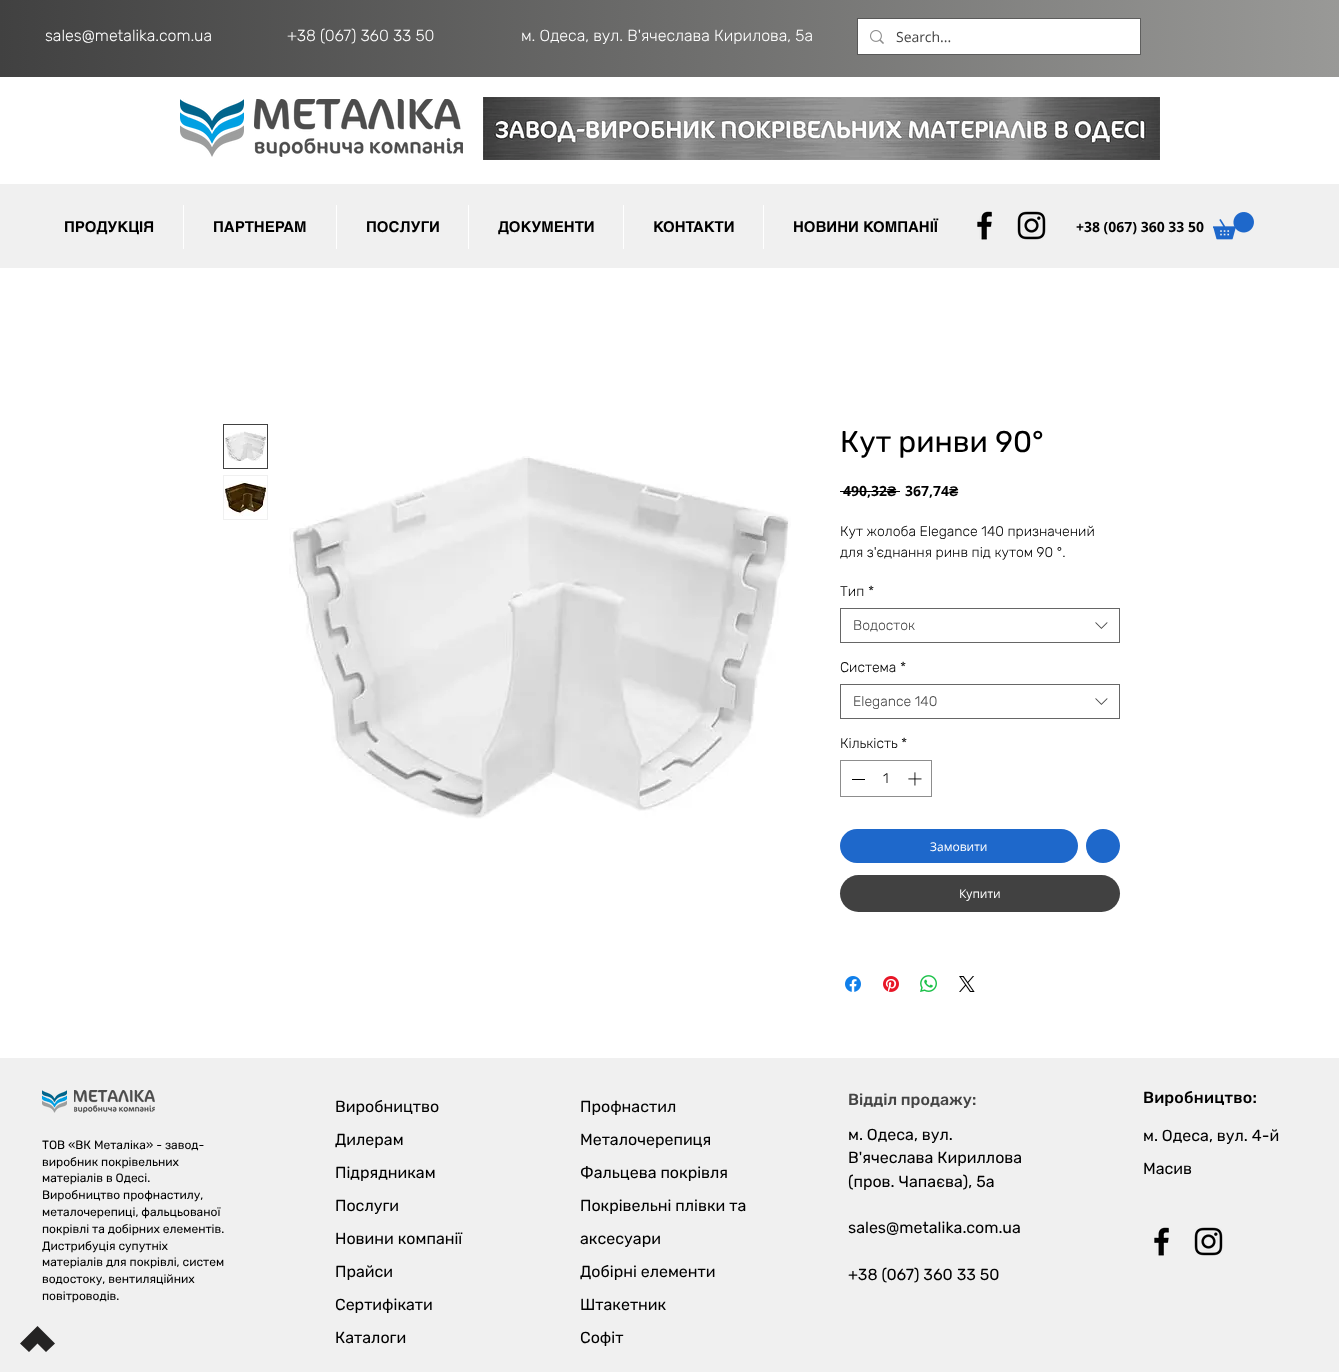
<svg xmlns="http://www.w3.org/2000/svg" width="1339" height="1372">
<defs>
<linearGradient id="g1" gradientUnits="userSpaceOnUse" x1="0" y1="39" x2="1339" y2="38"><stop offset="0" stop-color="#414141"/><stop offset="1" stop-color="#999997"/></linearGradient>
<clipPath id="clip1"><rect x="840" y="521" width="280" height="42"/></clipPath>
</defs>
<rect width="100%" height="100%" fill="#fff"/>
<rect width="1339" height="77" fill="url(#g1)"/>
<text x="45" y="41" style="font-family:Rubik;font-size:16px;font-weight:300;fill:#fff">sales@metalika.com.ua</text>
<text x="287" y="41" style="font-family:Rubik;font-size:16px;font-weight:300;fill:#fff">+38 (067) 360 33 50</text>
<text x="521" y="41" style="font-family:Rubik;font-size:16px;font-weight:300;fill:#fff">м. Одеса, вул. В'ячеслава Кирилова, 5а</text>
<rect x="857.5" y="18.5" width="283" height="36" fill="none" stroke="#41414199"/>
<rect x="858" y="19" width="282" height="35" fill="#fff"/>
<image x="870" y="30" width="14" height="14" href="media/1.png"/>
<text x="896" y="42" style="font-family:Open Sans;font-size:14px;fill:#444">Search...</text>
<image x="180" y="99" width="64" height="58" href="media/2.png"/>
<image x="254" y="99" width="209" height="58" href="media/3.png"/>
<image x="483" y="97" width="677" height="63" href="media/4.png"/>
<rect y="184" width="1339" height="84" fill="#f0f0f0"/>
<text x="64" y="232" style="font-family:helvetica;font-size:15px;font-weight:bold;fill:#000">ПРОДУКЦІЯ</text>
<rect x="183" y="205" width="1" height="44" fill="#fff"/>
<text x="213" y="232" style="font-family:helvetica;font-size:15px;font-weight:bold;fill:#000">ПАРТНЕРАМ</text>
<rect x="336" y="205" width="1" height="44" fill="#fff"/>
<text x="366" y="232" style="font-family:helvetica;font-size:15px;font-weight:bold;fill:#000">ПОСЛУГИ</text>
<rect x="468" y="205" width="1" height="44" fill="#fff"/>
<text x="498" y="232" style="font-family:helvetica;font-size:15px;font-weight:bold;fill:#000">ДОКУМЕНТИ</text>
<rect x="623" y="205" width="1" height="44" fill="#fff"/>
<text x="653" y="232" style="font-family:helvetica;font-size:15px;font-weight:bold;fill:#000">КОНТАКТИ</text>
<rect x="763" y="205" width="1" height="44" fill="#fff"/>
<text x="793" y="232" style="font-family:helvetica;font-size:15px;font-weight:bold;fill:#000">НОВИНИ КОМПАНІЇ</text>
<image x="977" y="211" width="15" height="29" href="media/5.png"/>
<image x="1017" y="211" width="29" height="29" href="media/6.png"/>
<text x="1076" y="232" style="font-family:Open Sans;font-size:14px;font-weight:bold;fill:#000">+38 (067) 360 33 50</text>
<image x="1213" y="212" width="41" height="28" href="media/7.png"/>
<rect x="223.5" y="424.5" width="44" height="44" fill="none" stroke="#414141"/>
<image x="224" y="431" width="43" height="30" href="media/8.png"/>
<rect x="223.5" y="475.5" width="44" height="44" fill="none" stroke="#f0f0f0"/>
<image x="224" y="481" width="43" height="35" href="media/9.png"/>
<image x="289" y="456" width="502" height="363" href="media/10.png"/>
<text x="840" y="452" style="font-family:Rubik;font-size:30px;fill:#000">Кут ринви 90°</text>
<text x="843" y="496" style="font-family:Open Sans;font-size:14px;font-weight:bold;fill:#000">490,32</text>
<rect x="840" y="491" width="60" height="1" fill="#000"/>
<text x="887" y="496" style="font-family:Liberation Sans;font-size:14px;font-weight:bold;fill:#000">₴</text>
<text x="905" y="496" style="font-family:Open Sans;font-size:14px;font-weight:bold;fill:#000">367,74</text>
<text x="949" y="496" style="font-family:Liberation Sans;font-size:14px;font-weight:bold;fill:#000">₴</text>
<text x="840" y="536" style="font-family:Rubik;font-size:14px;font-weight:300;fill:#000">Кут жолоба Elegance 140 призначений</text>
<g clip-path="url(#clip1)">
<text x="840" y="557" style="font-family:Rubik;font-size:14px;font-weight:300;fill:#000">для з'єднання ринв під кутом 90 °.</text>
</g>
<text x="840" y="596" style="font-family:Rubik;font-size:14px;font-weight:300;fill:#000">Тип</text>
<text x="868" y="596" style="font-family:Rubik;font-size:14px;font-weight:300;fill:#000">*</text>
<rect x="840.5" y="608.5" width="279" height="34" fill="none" stroke="#666"/>
<text x="853" y="630" style="font-family:Rubik;font-size:14px;font-weight:300;fill:#444">Водосток</text>
<image x="1095" y="622" width="13" height="7" href="media/11.png"/>
<text x="840" y="672" style="font-family:Rubik;font-size:14px;font-weight:300;fill:#000">Cистема</text>
<text x="900" y="672" style="font-family:Rubik;font-size:14px;font-weight:300;fill:#000">*</text>
<rect x="840.5" y="684.5" width="279" height="34" fill="none" stroke="#666"/>
<text x="853" y="706" style="font-family:Rubik;font-size:14px;font-weight:300;fill:#444">Elegance 140</text>
<image x="1095" y="698" width="13" height="7" href="media/11.png"/>
<text x="840" y="748" style="font-family:Rubik;font-size:14px;font-weight:300;fill:#000">Кількість</text>
<text x="901" y="748" style="font-family:Rubik;font-size:14px;font-weight:300;fill:#000">*</text>
<rect x="840.5" y="760.5" width="91" height="36" fill="none" stroke="#8d8d8d"/>
<rect x="852" y="779" width="13" height="1" fill="#000"/>
<text x="883" y="783" style="font-family:Rubik;font-size:14px;font-weight:300;fill:#000">1</text>
<image x="908" y="772" width="14" height="14" href="media/12.png"/>
<rect x="840" y="829" width="238" height="34" rx="17" fill="#1e68cb"/>
<text x="930" y="851" style="font-family:Open Sans;font-size:12px;fill:#fff">Замовити</text>
<circle cx="1103" cy="846" r="17" fill="#1e68cb"/>
<rect x="840" y="875" width="280" height="37" rx="18.5" fill="#414141"/>
<text x="959" y="898" style="font-family:Open Sans;font-size:12px;fill:#fff">Купити</text>
<image x="845" y="976" width="16" height="16" href="media/13.png"/>
<image x="883" y="976" width="16" height="16" href="media/14.png"/>
<image x="920" y="975" width="17" height="17" href="media/15.png"/>
<image x="959" y="976" width="16" height="16" href="media/16.png"/>
<rect y="1058" width="1339" height="314" fill="#f0f0f0"/>
<path d="M29 1334.5l-9 9l9 8.5l8.5-8.5l8.5 8.5l9-8.5l-17.5-17.5z" fill="#242323"/>
<image x="42" y="1090" width="25" height="23" href="media/17.png"/>
<image x="74" y="1090" width="81" height="23" href="media/18.png"/>
<text x="42" y="1149" style="font-family:Rubik;font-size:12px;fill:#000">ТОВ «ВК Металіка» - завод-</text>
<text x="42" y="1166" style="font-family:Rubik;font-size:12px;fill:#000">виробник покрівельних</text>
<text x="42" y="1182" style="font-family:Rubik;font-size:12px;fill:#000">матеріалів в Одесі.</text>
<text x="42" y="1199" style="font-family:Rubik;font-size:12px;fill:#000">Виробництво профнастилу,</text>
<text x="42" y="1216" style="font-family:Rubik;font-size:12px;fill:#000">металочерепиці, фальцьованої</text>
<text x="42" y="1233" style="font-family:Rubik;font-size:12px;fill:#000">покрівлі та добірних елементів.</text>
<text x="42" y="1250" style="font-family:Rubik;font-size:12px;fill:#000">Дистрибуція супутніх</text>
<text x="42" y="1266" style="font-family:Rubik;font-size:12px;fill:#000">матеріалів для покрівлі, систем</text>
<text x="42" y="1283" style="font-family:Rubik;font-size:12px;fill:#000">водостоку, вентиляційних</text>
<text x="42" y="1300" style="font-family:Rubik;font-size:12px;fill:#000">повітроводів.</text>
<text x="335" y="1112" style="font-family:Rubik;font-size:16px;fill:#000">Виробництво</text>
<text x="335" y="1145" style="font-family:Rubik;font-size:16px;fill:#000">Дилерам</text>
<text x="335" y="1178" style="font-family:Rubik;font-size:16px;fill:#000">Підрядникам</text>
<text x="335" y="1211" style="font-family:Rubik;font-size:16px;fill:#000">Послуги</text>
<text x="335" y="1244" style="font-family:Rubik;font-size:16px;fill:#000">Новини компанії</text>
<text x="335" y="1277" style="font-family:Rubik;font-size:16px;fill:#000">Прайси</text>
<text x="335" y="1310" style="font-family:Rubik;font-size:16px;fill:#000">Сертифікати</text>
<text x="335" y="1343" style="font-family:Rubik;font-size:16px;fill:#000">Каталоги</text>
<text x="580" y="1112" style="font-family:Rubik;font-size:16px;fill:#000">Профнастил</text>
<text x="580" y="1145" style="font-family:Rubik;font-size:16px;fill:#000">Металочерепиця</text>
<text x="580" y="1178" style="font-family:Rubik;font-size:16px;fill:#000">Фальцева покрівля</text>
<text x="580" y="1211" style="font-family:Rubik;font-size:16px;fill:#000">Покрівельні плівки та</text>
<text x="580" y="1244" style="font-family:Rubik;font-size:16px;fill:#000">аксесуари</text>
<text x="580" y="1277" style="font-family:Rubik;font-size:16px;fill:#000">Добірні елементи</text>
<text x="580" y="1310" style="font-family:Rubik;font-size:16px;fill:#000">Штакетник</text>
<text x="580" y="1343" style="font-family:Rubik;font-size:16px;fill:#000">Софіт</text>
<text x="848" y="1105" style="font-family:Rubik;font-size:16px;font-weight:500;fill:#444">Відділ продажу:</text>
<text x="848" y="1140" style="font-family:Rubik;font-size:16px;fill:#000">м. Одеса, вул.</text>
<text x="848" y="1163" style="font-family:Rubik;font-size:16px;fill:#000">В'ячеслава Кириллова</text>
<text x="848" y="1187" style="font-family:Rubik;font-size:16px;fill:#000">(пров. Чапаєва), 5а</text>
<text x="848" y="1233" style="font-family:Rubik;font-size:16px;fill:#000">sales@metalika.com.ua</text>
<text x="848" y="1280" style="font-family:Rubik;font-size:16px;fill:#000">+38 (067) 360 33 50</text>
<text x="1143" y="1103" style="font-family:Rubik;font-size:16px;font-weight:500;letter-spacing:0.2px;fill:#000">Виробництво:</text>
<text x="1143" y="1141" style="font-family:Rubik;font-size:16px;fill:#000">м. Одеса, вул. 4-й</text>
<text x="1143" y="1174" style="font-family:Rubik;font-size:16px;fill:#000">Масив</text>
<image x="1154" y="1227" width="15" height="29" href="media/5.png"/>
<image x="1194" y="1227" width="29" height="29" href="media/6.png"/>
</svg>
